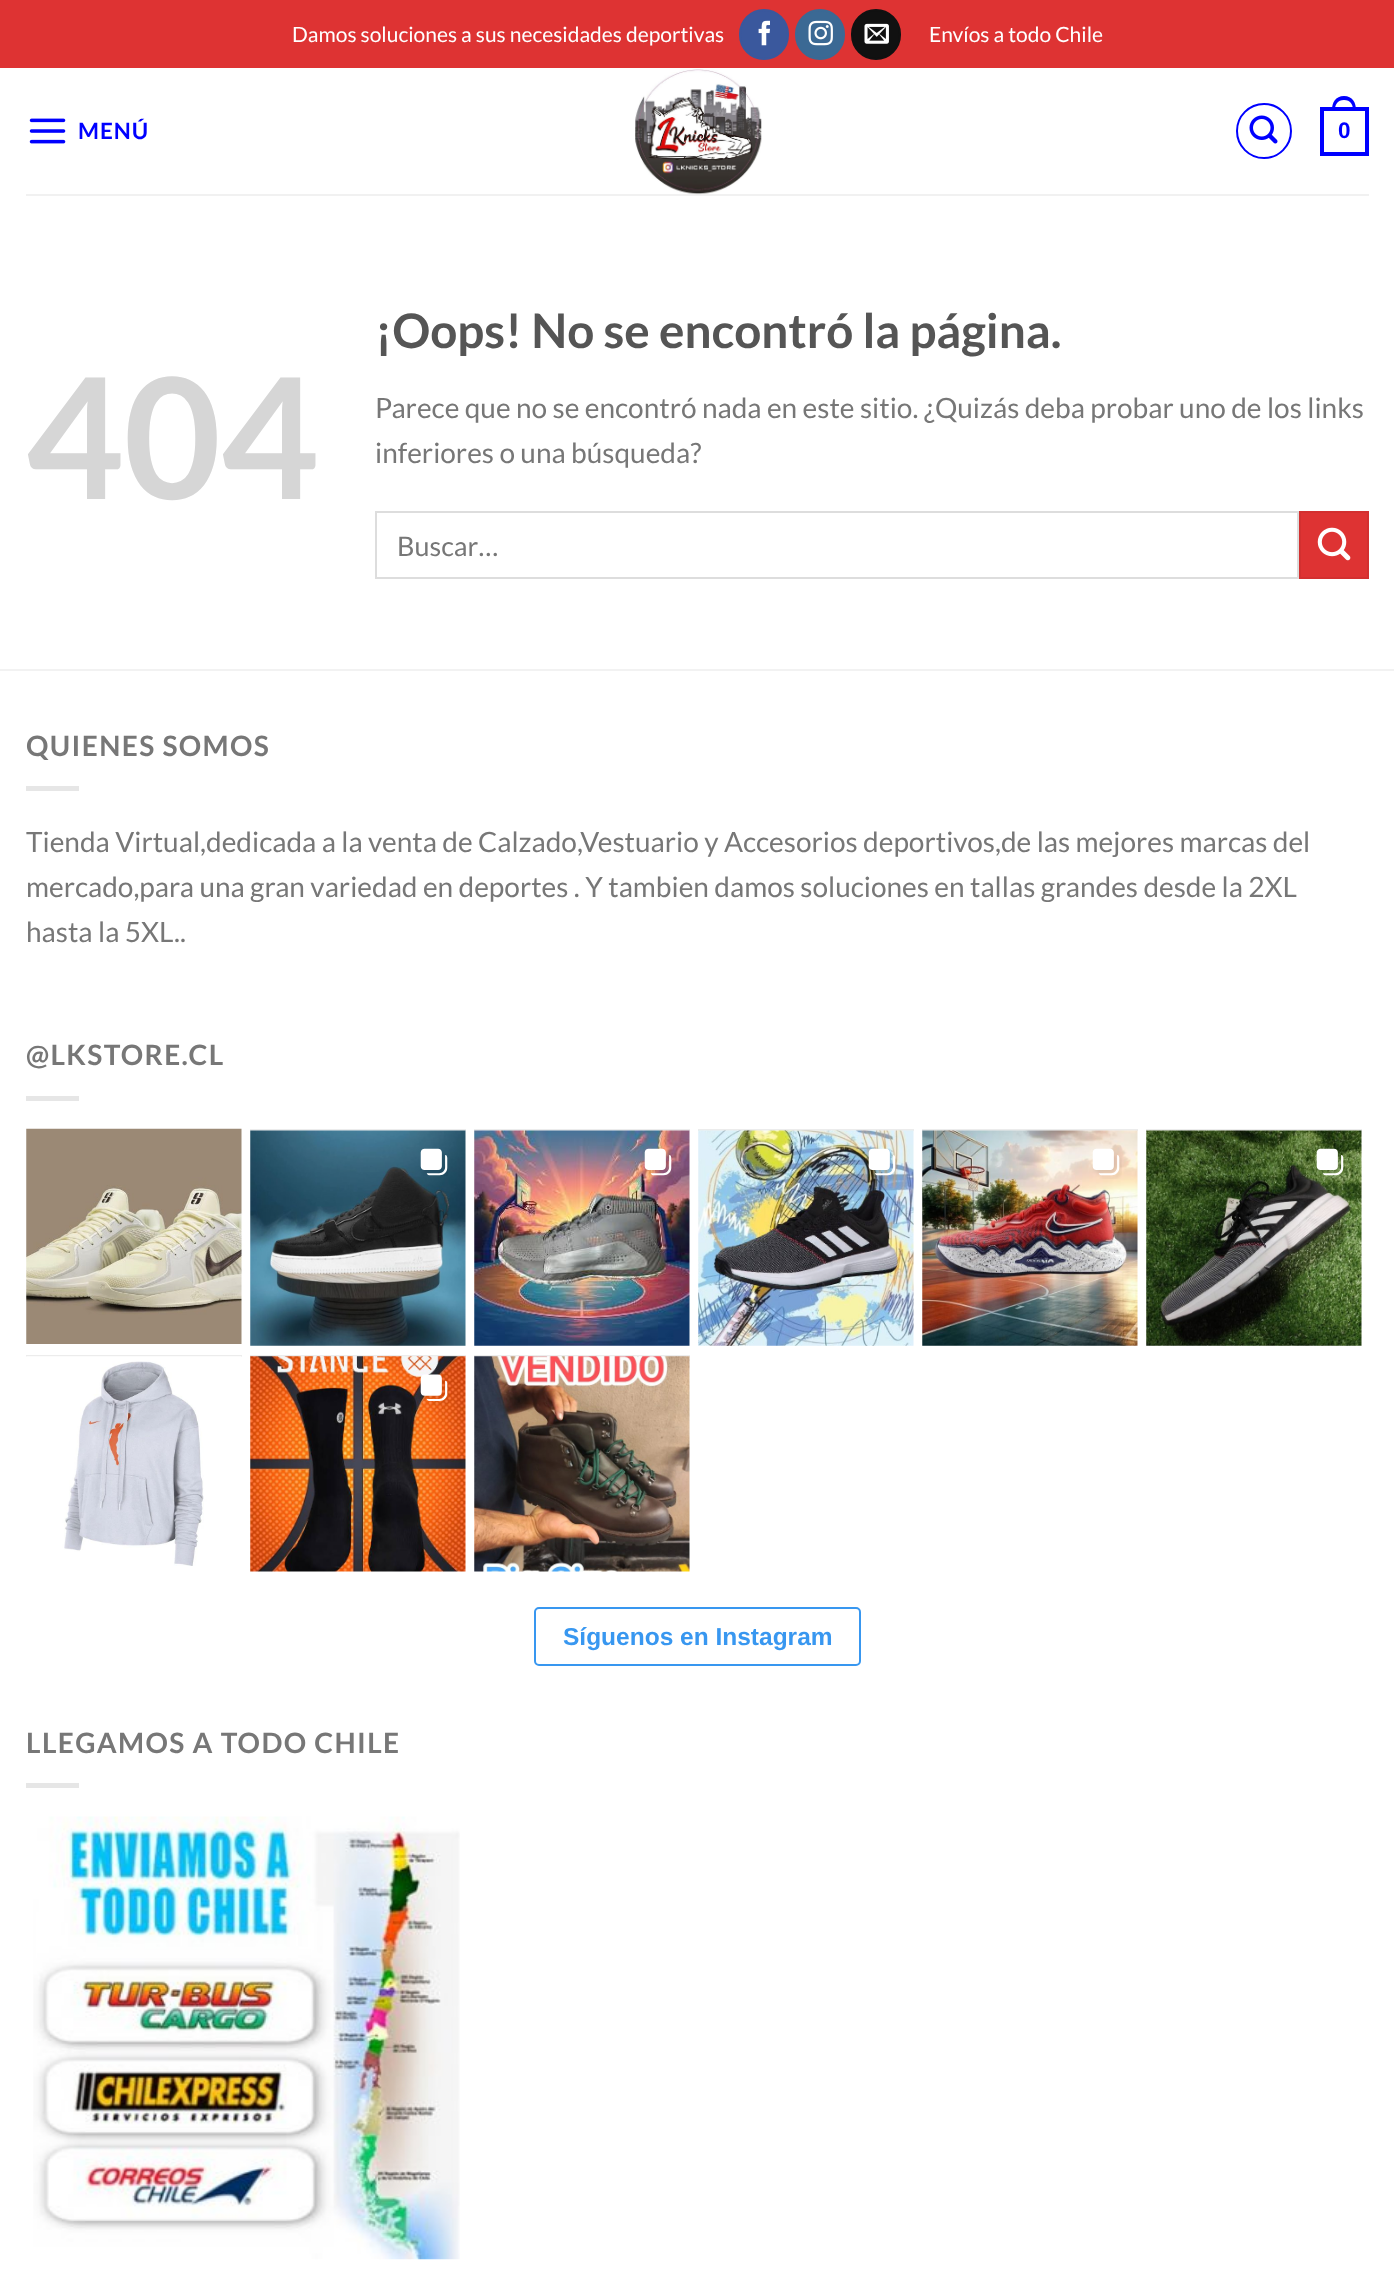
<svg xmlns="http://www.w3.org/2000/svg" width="1394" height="2289">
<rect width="100%" height="100%" fill="#fff"/>
<rect width="1394" height="68" fill="#de3333"/>
<text x="292" y="42" style="font-family:Lato;font-size:21px;fill:#fff">Damos soluciones a sus necesidades deportivas</text>
<rect x="740" y="10" width="48" height="49" rx="24" fill="#3a589d" stroke="#3a589d" stroke-width="2"/>
<image x="758" y="20" width="12" height="26" href="media/1.png"/>
<rect x="796" y="10" width="48" height="49" rx="24" fill="#3b6994" stroke="#3b6994" stroke-width="2"/>
<image x="808" y="20" width="25" height="26" href="media/2.png"/>
<rect x="852" y="10" width="48" height="49" rx="24" fill="#111" stroke="#111" stroke-width="2"/>
<image x="864" y="23" width="25" height="21" href="media/3.png"/>
<text x="929" y="42" style="font-family:Lato;font-size:21px;fill:#fff">Envíos a todo Chile</text>
<image x="29" y="118" width="37" height="26" href="media/4.png"/>
<text x="78" y="139" style="font-family:Lato;font-size:22.5px;font-weight:bold;letter-spacing:1px;fill:#00f">MENÚ</text>
<image x="635" y="69" width="127" height="126" href="media/5.png"/>
<circle cx="1264" cy="131" r="27" fill="none" stroke="#00f" stroke-width="2"/>
<image x="1249" y="115" width="29" height="29" href="media/6.png"/>
<rect x="1322" y="109" width="45" height="45" fill="none" stroke="#00f" stroke-width="4"/>
<path d="M1344 96c8.5 0 12 6.5 12 14h-24c0-7.5 3.5-14 12-14zm0 4c6.5 0 9 4.5 9 10h-18c0-5.5 2.5-10 9-10z" fill="#00f" fill-rule="evenodd"/>
<text x="1338" y="138" style="font-family:Liberation Sans;font-size:22.5px;font-weight:bold;fill:#00f">0</text>
<rect x="26" y="194" width="1343" height="2" fill="#7777771a"/>
<text x="26" y="499" style="font-family:Lato;font-size:168px;font-weight:bold;fill:#d6d6d6">404</text>
<text x="375" y="348" style="font-family:Lato;font-size:47.6px;font-weight:bold;fill:#555">¡Oops! No se encontró la página.</text>
<text x="375" y="418" style="font-family:Lato;font-size:28px;fill:#777">Parece que no se encontró nada en este sitio. ¿Quizás deba probar uno de los links</text>
<text x="375" y="463" style="font-family:Lato;font-size:28px;fill:#777">inferiores o una búsqueda?</text>
<rect x="376" y="512" width="922" height="66" fill="none" stroke="#ddd" stroke-width="2"/>
<text x="397" y="556" style="font-family:Lato;font-size:27px;fill:#777">Buscar…</text>
<rect x="1300" y="512" width="68" height="66" fill="#de3333" stroke="#d33030" stroke-width="2"/>
<image x="1317" y="527" width="34" height="34" href="media/7.png"/>
<rect y="669" width="1394" height="2" fill="#f2f2f2"/>
<text x="26" y="756" style="font-family:Lato;font-size:28px;font-weight:bold;letter-spacing:1.4px;fill:#777">QUIENES SOMOS</text>
<rect x="26" y="786" width="53" height="5" fill="#e6e6e6"/>
<text x="26" y="852" style="font-family:Lato;font-size:28px;fill:#777">Tienda Virtual,dedicada a la venta de Calzado,Vestuario y Accesorios deportivos,de las mejores marcas del</text>
<text x="26" y="897" style="font-family:Lato;font-size:28px;fill:#777">mercado,para una gran variedad en deportes . Y tambien damos soluciones en tallas grandes desde la 2XL</text>
<text x="26" y="942" style="font-family:Lato;font-size:28px;fill:#777">hasta la 5XL..</text>
<text x="26" y="1065" style="font-family:Lato;font-size:28px;font-weight:bold;letter-spacing:1.4px;fill:#777">@LKSTORE.CL</text>
<rect x="26" y="1096" width="53" height="5" fill="#e6e6e6"/>
<image x="26" y="1128" width="216" height="216" href="media/8.png"/>
<rect x="250" y="1129" width="216" height="2" fill="#ececec"/>
<image x="250" y="1130" width="216" height="216" href="media/9.png"/>
<image x="420" y="1148" width="28" height="28" href="media/10.png"/>
<rect x="474" y="1129" width="216" height="2" fill="#ececec"/>
<image x="474" y="1130" width="216" height="216" href="media/11.png"/>
<image x="644" y="1148" width="30" height="31" href="media/12.png"/>
<rect x="698" y="1129" width="216" height="2" fill="#ececec"/>
<image x="698" y="1130" width="216" height="216" href="media/13.png"/>
<image x="868" y="1148" width="30" height="31" href="media/14.png"/>
<rect x="922" y="1129" width="216" height="2" fill="#ececec"/>
<image x="922" y="1130" width="216" height="216" href="media/15.png"/>
<image x="1092" y="1148" width="30" height="31" href="media/16.png"/>
<rect x="1146" y="1129" width="216" height="2" fill="#ececec"/>
<image x="1146" y="1130" width="216" height="216" href="media/17.png"/>
<image x="1316" y="1148" width="29" height="31" href="media/18.png"/>
<rect x="26" y="1355" width="216" height="2" fill="#ececec"/>
<image x="26" y="1356" width="216" height="210" href="media/19.png"/>
<rect x="250" y="1355" width="216" height="2" fill="#ececec"/>
<image x="250" y="1356" width="216" height="216" href="media/20.png"/>
<image x="420" y="1374" width="30" height="31" href="media/21.png"/>
<rect x="474" y="1355" width="216" height="2" fill="#ececec"/>
<image x="474" y="1356" width="216" height="216" href="media/22.png"/>
<rect x="535" y="1608" width="325" height="57" rx="4" fill="none" stroke="#3897f0" stroke-width="2"/>
<text x="563" y="1645" style="font-family:Liberation Sans;font-size:24.5px;font-weight:bold;fill:#3897f0">Síguenos en Instagram</text>
<text x="26" y="1753" style="font-family:Lato;font-size:28px;font-weight:bold;letter-spacing:1.4px;fill:#777">LLEGAMOS A TODO CHILE</text>
<rect x="26" y="1783" width="53" height="5" fill="#e6e6e6"/>
<image x="33" y="1816" width="427" height="444" href="media/23.png"/>
</svg>
